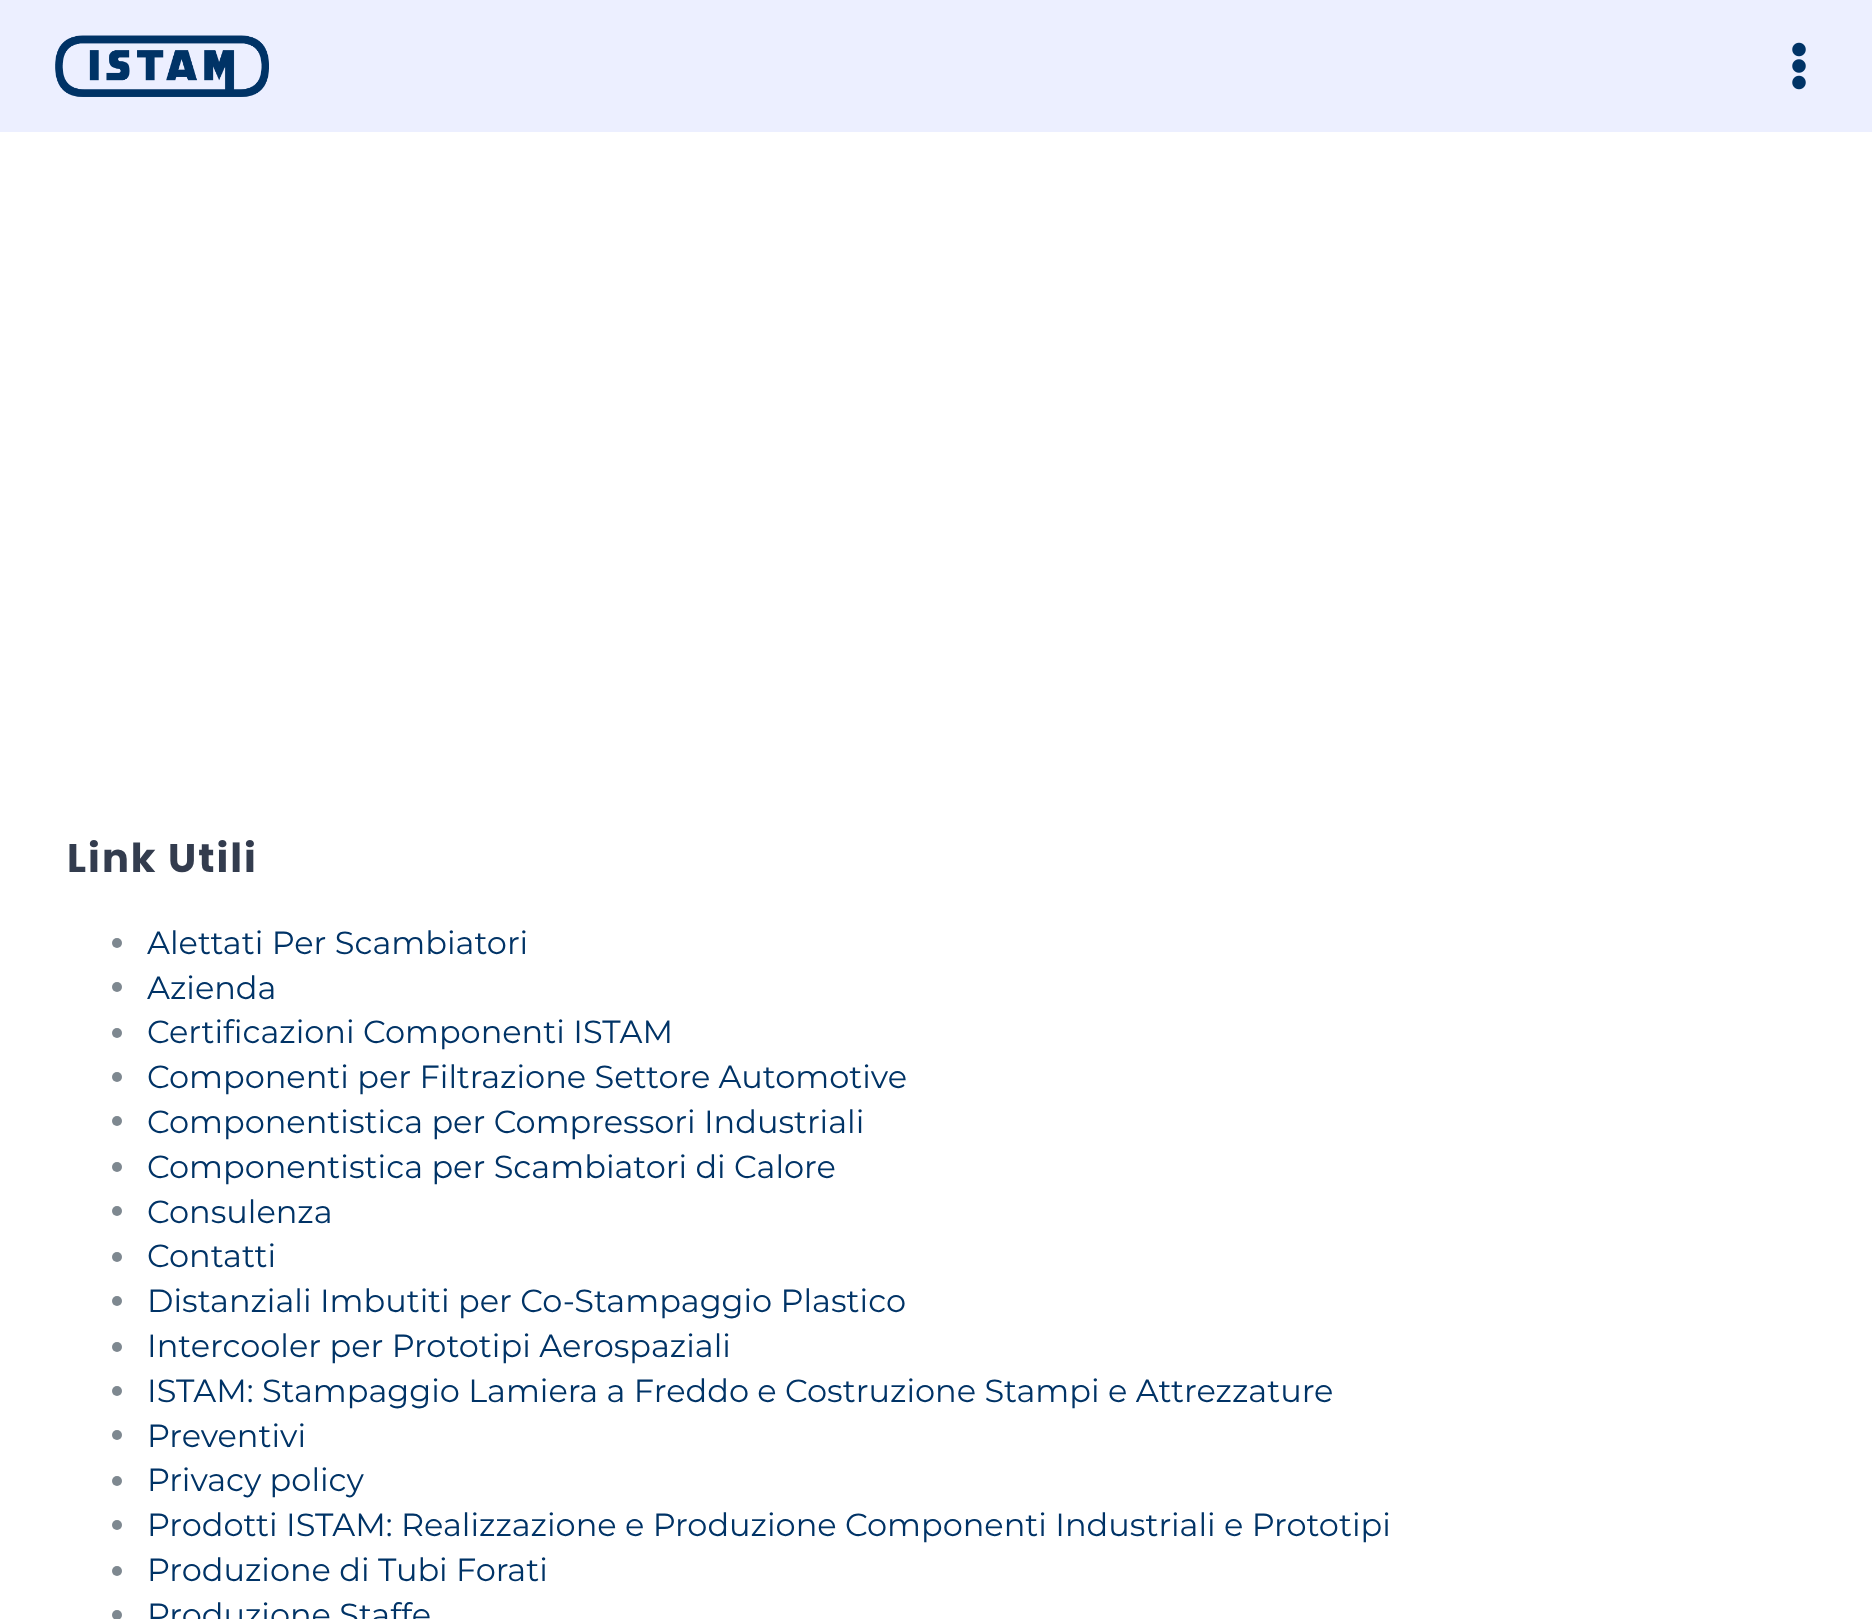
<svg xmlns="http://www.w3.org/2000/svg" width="1872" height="1619">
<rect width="100%" height="100%" fill="#fff"/>
<rect width="1872" height="132" fill="#ecefff"/>
<image x="55" y="35" width="214" height="62" href="media/1.png"/>
<image x="1792" y="42" width="14" height="48" href="media/2.png"/>
<text x="67" y="872" style="font-family:Poppins;font-size:40px;font-weight:bold;letter-spacing:2px;fill:#333c4e">Link Utili</text>
<circle cx="117" cy="943" r="5" fill="#7e8890"/>
<text x="147" y="954" style="font-family:Montserrat;font-size:32px;fill:#036">Alettati Per Scambiatori</text>
<circle cx="117" cy="987" r="5" fill="#7e8890"/>
<text x="147" y="999" style="font-family:Montserrat;font-size:32px;fill:#036">Azienda</text>
<circle cx="117" cy="1033" r="5" fill="#7e8890"/>
<text x="147" y="1043" style="font-family:Montserrat;font-size:32px;fill:#036">Certificazioni Componenti ISTAM</text>
<circle cx="117" cy="1077" r="5" fill="#7e8890"/>
<text x="147" y="1088" style="font-family:Montserrat;font-size:32px;fill:#036">Componenti per Filtrazione Settore Automotive</text>
<circle cx="117" cy="1121" r="5" fill="#7e8890"/>
<text x="147" y="1133" style="font-family:Montserrat;font-size:32px;fill:#036">Componentistica per Compressori Industriali</text>
<circle cx="117" cy="1167" r="5" fill="#7e8890"/>
<text x="147" y="1178" style="font-family:Montserrat;font-size:32px;fill:#036">Componentistica per Scambiatori di Calore</text>
<circle cx="117" cy="1211" r="5" fill="#7e8890"/>
<text x="147" y="1223" style="font-family:Montserrat;font-size:32px;fill:#036">Consulenza</text>
<circle cx="117" cy="1257" r="5" fill="#7e8890"/>
<text x="147" y="1267" style="font-family:Montserrat;font-size:32px;fill:#036">Contatti</text>
<circle cx="117" cy="1301" r="5" fill="#7e8890"/>
<text x="147" y="1312" style="font-family:Montserrat;font-size:32px;fill:#036">Distanziali Imbutiti per Co-Stampaggio Plastico</text>
<circle cx="117" cy="1347" r="5" fill="#7e8890"/>
<text x="147" y="1357" style="font-family:Montserrat;font-size:32px;fill:#036">Intercooler per Prototipi Aerospaziali</text>
<circle cx="117" cy="1391" r="5" fill="#7e8890"/>
<text x="147" y="1402" style="font-family:Montserrat;font-size:32px;fill:#036">ISTAM: Stampaggio Lamiera a Freddo e Costruzione Stampi e Attrezzature</text>
<circle cx="117" cy="1435" r="5" fill="#7e8890"/>
<text x="147" y="1447" style="font-family:Montserrat;font-size:32px;fill:#036">Preventivi</text>
<circle cx="117" cy="1481" r="5" fill="#7e8890"/>
<text x="147" y="1491" style="font-family:Montserrat;font-size:32px;fill:#036">Privacy policy</text>
<circle cx="117" cy="1525" r="5" fill="#7e8890"/>
<text x="147" y="1536" style="font-family:Montserrat;font-size:32px;fill:#036">Prodotti ISTAM: Realizzazione e Produzione Componenti Industriali e Prototipi</text>
<circle cx="117" cy="1571" r="5" fill="#7e8890"/>
<text x="147" y="1581" style="font-family:Montserrat;font-size:32px;fill:#036">Produzione di Tubi Forati</text>
<circle cx="117" cy="1615" r="5" fill="#7e8890"/>
<text x="147" y="1626" style="font-family:Montserrat;font-size:32px;fill:#036">Produzione Staffe</text>
</svg>
